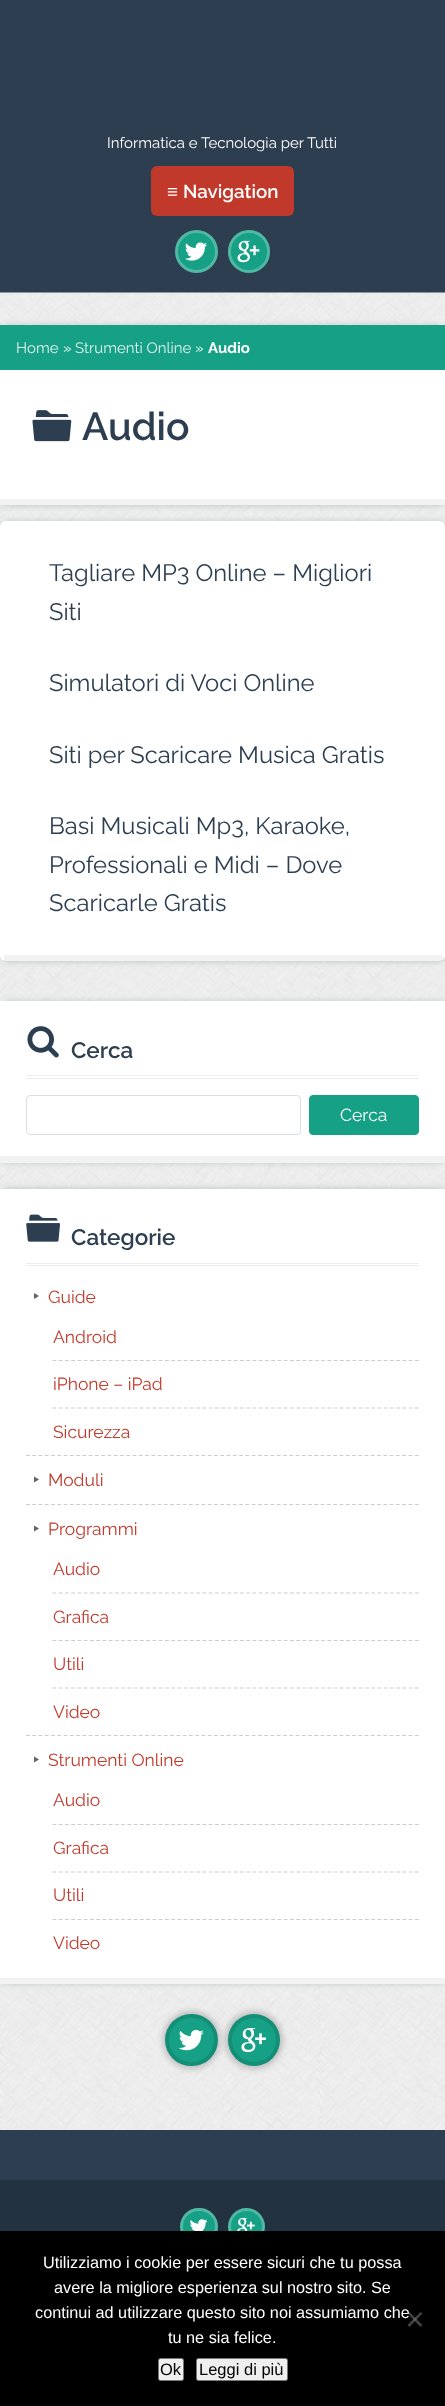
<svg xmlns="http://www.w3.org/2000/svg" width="445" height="2406">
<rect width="100%" height="100%" fill="#2c3e50"/>
<text x="107" y="148" style="font-family:Raleway;font-size:15px;fill:#fff">Informatica e Tecnologia per Tutti</text>
<rect x="151" y="166" width="143" height="50" rx="6" fill="#c0392b"/>
<text x="167" y="198" style="font-family:Liberation Sans;font-size:18.75px;font-weight:bold;fill:#fff">≡</text>
<text x="183" y="198" style="font-family:Raleway;font-size:18.75px;font-weight:600;fill:#fff">Navigation</text>
<circle cx="196.5" cy="251.5" r="21.5" fill="#16a085"/>
<circle cx="196.5" cy="251.5" r="20" fill="none" stroke="#ffffff40" stroke-width="3"/>
<rect x="228" y="230" width="42" height="43" rx="21" fill="#16a085"/>
<rect x="229.5" y="231.5" width="39" height="40" rx="19.5" fill="none" stroke="#ffffff40" stroke-width="3"/>
<image x="185" y="242" width="22" height="19" href="media/1.png"/>
<image x="237" y="240" width="23" height="23" href="media/2.png"/>
<image x="0" y="292" width="445" height="1838" href="media/3.png"/>
<rect x="3" y="328" width="440" height="175" fill="#95a5a6" filter="blur(4px)"/>
<rect y="370" width="445" height="129" fill="#fff"/>
<rect y="499" width="445" height="6" fill="#f2f2f2"/>
<rect y="325" width="445" height="45" fill="#16a085"/>
<text x="16" y="353" style="font-family:Raleway;font-size:15px;fill:#dcf1ed">Home</text>
<text x="63" y="353" style="font-family:Raleway;font-size:15px;fill:#fff">»</text>
<text x="75" y="353" style="font-family:Raleway;font-size:15px;fill:#dcf1ed">Strumenti Online</text>
<text x="195" y="353" style="font-family:Raleway;font-size:15px;fill:#fff">»</text>
<text x="208" y="353" style="font-family:Raleway;font-size:15px;font-weight:bold;fill:#fff">Audio</text>
<image x="32" y="410" width="40" height="32" href="media/4.png"/>
<text x="82" y="440" style="font-family:Raleway;font-size:39px;font-weight:600;fill:#2c3e50">Audio</text>
<rect x="3" y="524" width="440" height="435" rx="4" fill="#95a5a6" filter="blur(4px)"/>
<rect y="521" width="445" height="440" rx="6" fill="#fff"/>
<rect x="4" y="955" width="439" height="6" fill="#0000000d"/>
<text x="49" y="581" style="font-family:Raleway;font-size:23.75px;fill:#2c3e50">Tagliare MP3 Online – Migliori</text>
<text x="49" y="620" style="font-family:Raleway;font-size:23.75px;fill:#2c3e50">Siti</text>
<text x="49" y="691" style="font-family:Raleway;font-size:23.75px;fill:#2c3e50">Simulatori di Voci Online</text>
<text x="49" y="763" style="font-family:Raleway;font-size:23.75px;fill:#2c3e50">Siti per Scaricare Musica Gratis</text>
<text x="49" y="834" style="font-family:Raleway;font-size:23.75px;fill:#2c3e50">Basi Musicali Mp3, Karaoke,</text>
<text x="49" y="873" style="font-family:Raleway;font-size:23.75px;fill:#2c3e50">Professionali e Midi – Dove</text>
<text x="49" y="911" style="font-family:Raleway;font-size:23.75px;fill:#2c3e50">Scaricarle Gratis</text>
<rect x="3" y="1004" width="440" height="156" fill="#95a5a6" filter="blur(4px)"/>
<rect y="1001" width="445" height="155" fill="#fff"/>
<rect y="1156" width="445" height="7" fill="#f2f2f2"/>
<rect x="26" y="1075" width="393" height="1" fill="#ededed"/>
<rect x="26" y="1078" width="393" height="1" fill="#ededed"/>
<image x="27" y="1026" width="32" height="32" href="media/5.png"/>
<text x="71" y="1058" style="font-family:Raleway;font-size:22.5px;font-weight:600;fill:#2c3e50">Cerca</text>
<rect x="26.5" y="1095.5" width="274" height="39" rx="3.5" fill="none" stroke="#d8dee3"/>
<rect x="309.5" y="1095.5" width="109" height="39" rx="3.5" fill="#16a085" stroke="#16a085"/>
<text x="340" y="1121" style="font-family:Raleway;font-size:17.5px;fill:#fff">Cerca</text>
<rect x="3" y="1191" width="440" height="790" fill="#95a5a6" filter="blur(4px)"/>
<rect y="1189" width="445" height="789" fill="#fff"/>
<rect y="1978" width="445" height="6" fill="#f2f2f2"/>
<rect x="26" y="1263" width="393" height="1" fill="#ededed"/>
<rect x="26" y="1265" width="393" height="1" fill="#ededed"/>
<image x="26" y="1214" width="34" height="28" href="media/6.png"/>
<text x="71" y="1245" style="font-family:Raleway;font-size:22.5px;font-weight:600;fill:#2c3e50">Categorie</text>
<path d="M26 1455.5h393" fill="none" stroke="#ccc" stroke-width="1.2" stroke-dasharray="3.75 2.52"/>
<path d="M34 1293v6l5-3z" fill="#646464"/>
<text x="48" y="1303" style="font-family:Raleway;font-size:17.5px;fill:#c0392b">Guide</text>
<path d="M52.5 1360.5h366.5" fill="none" stroke="#ccc" stroke-width="1.2" stroke-dasharray="3.75 2.5"/>
<text x="53" y="1343" style="font-family:Raleway;font-size:17.5px;fill:#c0392b">Android</text>
<path d="M52.5 1408h366.5" fill="none" stroke="#ccc" stroke-width="1.2" stroke-dasharray="3.75 2.5"/>
<text x="53" y="1390" style="font-family:Raleway;font-size:17.5px;fill:#c0392b">iPhone – iPad</text>
<text x="53" y="1438" style="font-family:Raleway;font-size:17.5px;fill:#c0392b">Sicurezza</text>
<path d="M26 1504.5h393" fill="none" stroke="#ccc" stroke-width="1.2" stroke-dasharray="3.75 2.52"/>
<path d="M34 1476.5v6l5-3zm0 49v6l5-3z" fill="#646464"/>
<text x="48" y="1486" style="font-family:Raleway;font-size:17.5px;fill:#c0392b">Moduli</text>
<path d="M26 1735.5h393" fill="none" stroke="#ccc" stroke-width="1.2" stroke-dasharray="3.75 2.52"/>
<text x="48" y="1535" style="font-family:Raleway;font-size:17.5px;fill:#c0392b">Programmi</text>
<path d="M52.5 1593h366.5" fill="none" stroke="#ccc" stroke-width="1.2" stroke-dasharray="3.75 2.5"/>
<text x="53" y="1575" style="font-family:Raleway;font-size:17.5px;fill:#c0392b">Audio</text>
<path d="M52.5 1640.5h366.5" fill="none" stroke="#ccc" stroke-width="1.2" stroke-dasharray="3.75 2.5"/>
<text x="53" y="1623" style="font-family:Raleway;font-size:17.5px;fill:#c0392b">Grafica</text>
<path d="M52.5 1688h366.5" fill="none" stroke="#ccc" stroke-width="1.2" stroke-dasharray="3.75 2.5"/>
<text x="53" y="1670" style="font-family:Raleway;font-size:17.5px;fill:#c0392b">Utili</text>
<text x="53" y="1718" style="font-family:Raleway;font-size:17.5px;fill:#c0392b">Video</text>
<path d="M34 1756.5v6l5-3z" fill="#646464"/>
<text x="48" y="1766" style="font-family:Raleway;font-size:17.5px;fill:#c0392b">Strumenti Online</text>
<path d="M52.5 1824.5h366.5" fill="none" stroke="#ccc" stroke-width="1.2" stroke-dasharray="3.75 2.5"/>
<text x="53" y="1806" style="font-family:Raleway;font-size:17.5px;fill:#c0392b">Audio</text>
<path d="M52.5 1872h366.5" fill="none" stroke="#ccc" stroke-width="1.2" stroke-dasharray="3.75 2.5"/>
<text x="53" y="1854" style="font-family:Raleway;font-size:17.5px;fill:#c0392b">Grafica</text>
<path d="M52.5 1919.5h366.5" fill="none" stroke="#ccc" stroke-width="1.2" stroke-dasharray="3.75 2.5"/>
<text x="53" y="1901" style="font-family:Raleway;font-size:17.5px;fill:#c0392b">Utili</text>
<text x="53" y="1949" style="font-family:Raleway;font-size:17.5px;fill:#c0392b">Video</text>
<rect x="163" y="2011" width="57" height="58" rx="28.5" fill="#00000033" filter="blur(3px)"/>
<rect x="165" y="2014" width="53" height="52" rx="26" fill="#16a085"/>
<rect x="167" y="2016" width="49" height="48" rx="24" fill="none" stroke="#0000001a" stroke-width="4"/>
<rect x="225" y="2011" width="58" height="58" rx="29" fill="#00000033" filter="blur(3px)"/>
<circle cx="254" cy="2040" r="26" fill="#16a085"/>
<circle cx="254" cy="2040" r="24" fill="none" stroke="#0000001a" stroke-width="4"/>
<image x="178" y="2029" width="26" height="22" href="media/7.png"/>
<image x="241" y="2028" width="25" height="25" href="media/8.png"/>
<rect y="2180" width="445" height="51" fill="#233240"/>
<rect x="180" y="2208" width="38" height="37" rx="18.5" fill="#16a085"/>
<rect x="181.5" y="2209.5" width="35" height="34" rx="17" fill="none" stroke="#ffffff40" stroke-width="3"/>
<circle cx="246.5" cy="2226.5" r="18.5" fill="#16a085"/>
<circle cx="246.5" cy="2226.5" r="17" fill="none" stroke="#ffffff40" stroke-width="3"/>
<image x="190" y="2219" width="18" height="12" href="media/9.png"/>
<image x="237" y="2217" width="18" height="14" href="media/10.png"/>
<rect y="2231" width="445" height="175" fill="#000"/>
<text x="43" y="2268" style="font-family:Liberation Sans;font-size:16.25px;fill:#fff">Utilizziamo i cookie per essere sicuri che tu possa</text>
<text x="54" y="2293" style="font-family:Liberation Sans;font-size:16.25px;fill:#fff">avere la migliore esperienza sul nostro sito. Se</text>
<text x="35" y="2318" style="font-family:Liberation Sans;font-size:16.25px;fill:#fff">continui ad utilizzare questo sito noi assumiamo che</text>
<text x="168" y="2343" style="font-family:Liberation Sans;font-size:16.25px;fill:#fff">tu ne sia felice.</text>
<path d="M420.5 2312l2 1.5l-13 13.5l-2-2z" fill="#404040"/>
<path d="M407.5 2313.5l2-1.5l13 13l-2 2z" fill="#80808080"/>
<rect x="158.5" y="2358.5" width="25" height="22" rx="2" fill="#efefef" stroke="#767676"/>
<text x="160" y="2375" style="font-family:Liberation Sans;font-size:16.5px;fill:#000">Ok</text>
<rect x="196.5" y="2358.5" width="91" height="22" rx="2" fill="#efefef" stroke="#767676"/>
<text x="199" y="2375" style="font-family:Liberation Sans;font-size:16.5px;fill:#000">Leggi di più</text>
</svg>
